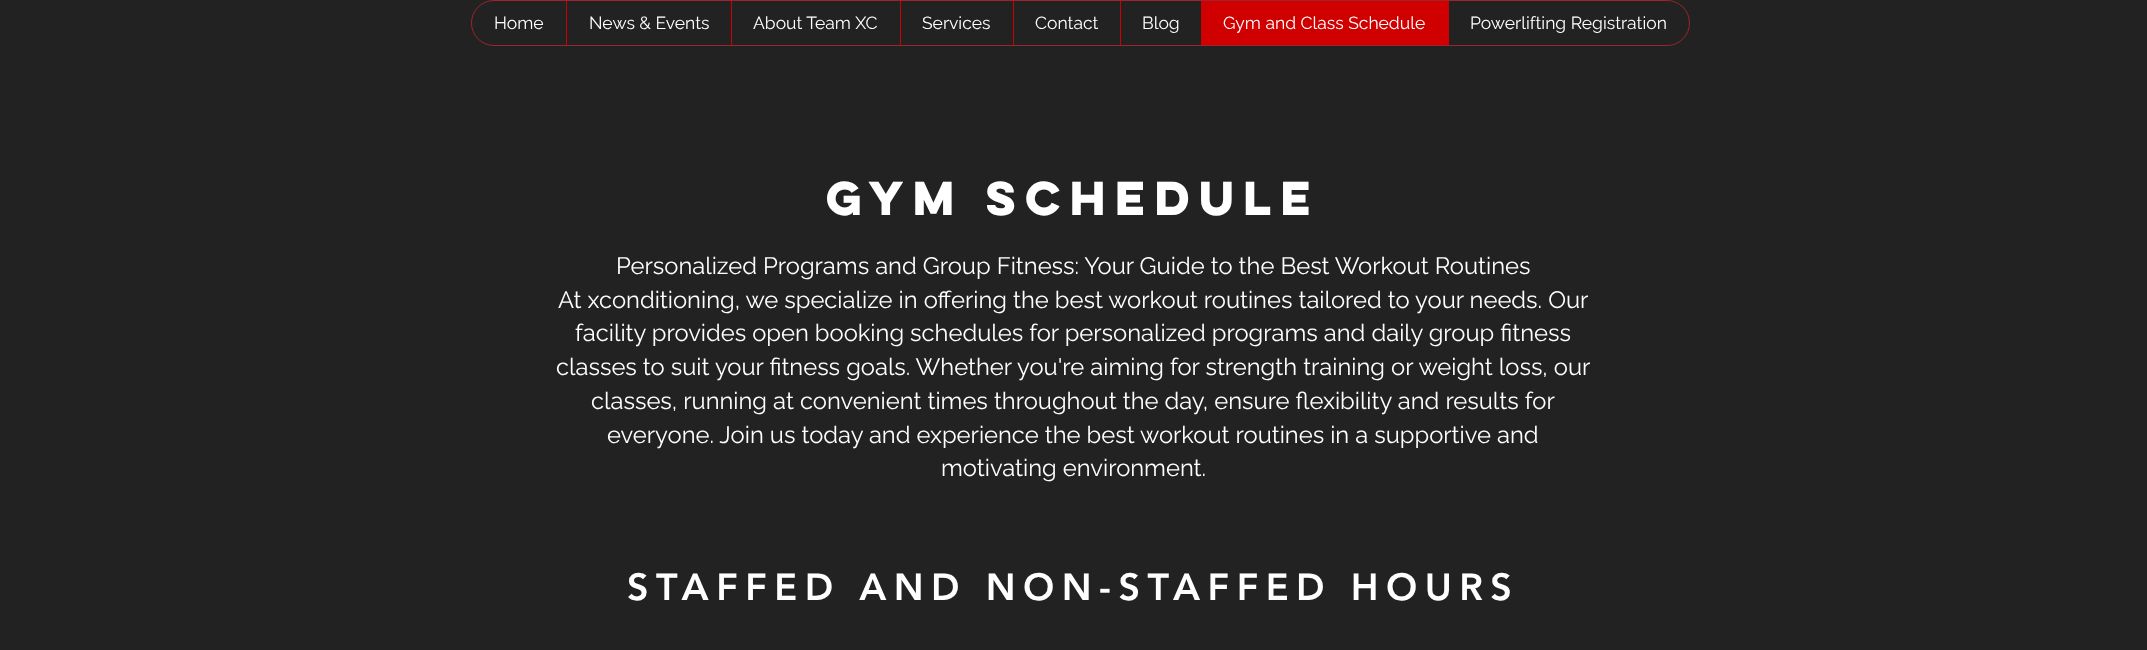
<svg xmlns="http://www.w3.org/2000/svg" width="2147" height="650">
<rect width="100%" height="100%" fill="#222"/>
<rect x="471.5" y="0.5" width="1218" height="45" rx="22.5" fill="none" stroke="#9d242c"/>
<text x="494" y="29" style="font-family:Raleway;font-size:17.5px;fill:#fff">Home</text>
<rect x="566" y="1" width="1" height="44" fill="#d10000"/>
<text x="589" y="29" style="font-family:Raleway;font-size:17.5px;fill:#fff">News &amp; Events</text>
<rect x="731" y="1" width="1" height="44" fill="#d10000"/>
<text x="753" y="29" style="font-family:Raleway;font-size:17.5px;fill:#fff">About Team XC</text>
<rect x="900" y="1" width="1" height="44" fill="#d10000"/>
<text x="922" y="29" style="font-family:Raleway;font-size:17.5px;fill:#fff">Services</text>
<rect x="1013" y="1" width="1" height="44" fill="#d10000"/>
<text x="1035" y="29" style="font-family:Raleway;font-size:17.5px;fill:#fff">Contact</text>
<rect x="1120" y="1" width="1" height="44" fill="#d10000"/>
<text x="1142" y="29" style="font-family:Raleway;font-size:17.5px;fill:#fff">Blog</text>
<rect x="1201" y="1" width="248" height="44" fill="#d10000"/>
<text x="1223" y="29" style="font-family:Raleway;font-size:17.5px;fill:#fff">Gym and Class Schedule</text>
<text x="1470" y="29" style="font-family:Raleway;font-size:17.5px;fill:#fff">Powerlifting Registration</text>
<text x="826" y="215" style="font-family:'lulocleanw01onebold';font-size:42.5px;font-weight:bold;fill:#fff">GYM SCHEDULE</text>
<text x="616" y="274" style="font-family:Raleway;font-size:23.75px;fill:#fff">Personalized Programs and Group Fitness: Your Guide to the Best Workout Routines</text>
<text x="558" y="308" style="font-family:Raleway;font-size:23.75px;fill:#fff">At xconditioning, we specialize in offering the best workout routines tailored to your needs. Our</text>
<text x="575" y="341" style="font-family:Raleway;font-size:23.75px;fill:#fff">facility provides open booking schedules for personalized programs and daily group fitness</text>
<text x="556" y="375" style="font-family:Raleway;font-size:23.75px;fill:#fff">classes to suit your fitness goals. Whether you're aiming for strength training or weight loss, our</text>
<text x="591" y="409" style="font-family:Raleway;font-size:23.75px;fill:#fff">classes, running at convenient times throughout the day, ensure flexibility and results for</text>
<text x="607" y="443" style="font-family:Raleway;font-size:23.75px;fill:#fff">everyone. Join us today and experience the best workout routines in a supportive and</text>
<text x="941" y="476" style="font-family:Raleway;font-size:23.75px;fill:#fff">motivating environment.</text>
<text x="627" y="600" style="font-family:'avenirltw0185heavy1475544';font-size:37.5px;font-weight:900;letter-spacing:7.5px;fill:#fff">STAFFED AND NON-STAFFED HOURS</text>
</svg>
